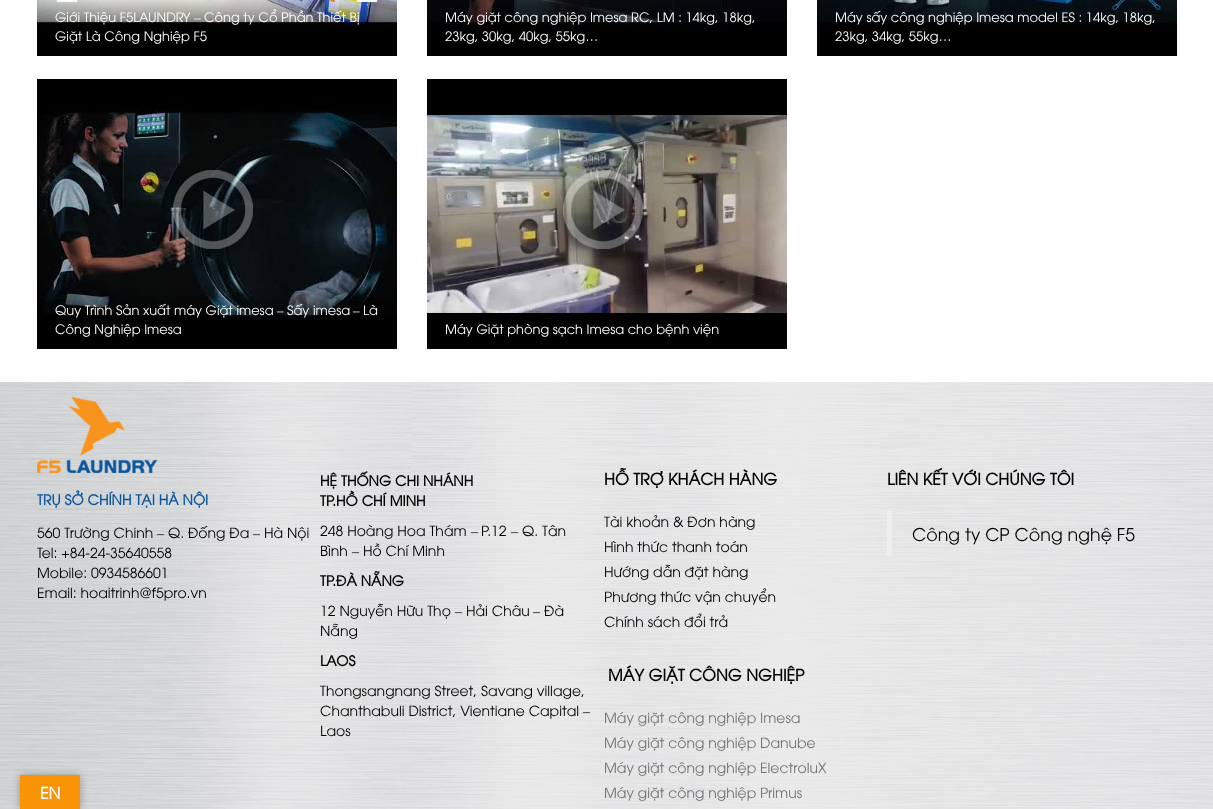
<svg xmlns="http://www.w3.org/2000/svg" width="1213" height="809">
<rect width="100%" height="100%" fill="#fff"/>
<image x="37" y="0" width="360" height="56" href="media/1.png"/>
<text x="55" y="22" style="font-family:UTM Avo;font-size:13px;fill:#fff">Giới Thiệu F5LAUNDRY</text>
<text x="194" y="22" style="font-family:Liberation Serif;font-size:13px;fill:#fff">–</text>
<text x="204" y="22" style="font-family:UTM Avo;font-size:13px;fill:#fff">Công ty Cổ Phần Thiết Bị</text>
<text x="55" y="41" style="font-family:UTM Avo;font-size:13px;fill:#fff">Giặt Là Công Nghiệp F5</text>
<image x="427" y="0" width="360" height="56" href="media/2.png"/>
<text x="445" y="22" style="font-family:UTM Avo;font-size:13px;fill:#fff">Máy giặt công nghiệp Imesa RC, LM : 14kg, 18kg,</text>
<text x="445" y="41" style="font-family:UTM Avo;font-size:13px;fill:#fff">23kg, 30kg, 40kg, 55kg…</text>
<image x="817" y="0" width="360" height="56" href="media/3.png"/>
<text x="835" y="22" style="font-family:UTM Avo;font-size:13px;fill:#fff">Máy sấy công nghiệp Imesa model ES : 14kg, 18kg,</text>
<text x="835" y="41" style="font-family:UTM Avo;font-size:13px;fill:#fff">23kg, 34kg, 55kg…</text>
<image x="37" y="79" width="360" height="270" href="media/4.png"/>
<image x="169" y="169" width="84" height="82" href="media/5.png"/>
<text x="55" y="315" style="font-family:UTM Avo;font-size:13px;fill:#fff">Quy Trình Sản xuất máy Giặt imesa</text>
<text x="277" y="315" style="font-family:Liberation Serif;font-size:13px;fill:#fff">–</text>
<text x="287" y="315" style="font-family:UTM Avo;font-size:13px;fill:#fff">Sấy imesa</text>
<text x="353" y="315" style="font-family:Liberation Serif;font-size:13px;fill:#fff">–</text>
<text x="363" y="315" style="font-family:UTM Avo;font-size:13px;fill:#fff">Là</text>
<text x="55" y="334" style="font-family:UTM Avo;font-size:13px;fill:#fff">Công Nghiệp Imesa</text>
<image x="427" y="79" width="360" height="270" href="media/6.png"/>
<image x="559" y="165" width="96" height="93" href="media/7.png"/>
<text x="445" y="334" style="font-family:UTM Avo;font-size:13px;fill:#fff">Máy Giặt phòng sạch Imesa cho bệnh viện</text>
<image x="0" y="382" width="1213" height="427" href="media/8.png"/>
<image x="37" y="397" width="120" height="76" href="media/9.png"/>
<text x="37" y="505" style="font-family:UTM Avo;font-size:14px;font-weight:bold;fill:#0a579e">TRỤ SỞ CHÍNH TẠI HÀ NỘI</text>
<text x="37" y="538" style="font-family:UTM Avo;font-size:14px;fill:#000">560 Trường Chinh</text>
<text x="157" y="538" style="font-family:Liberation Serif;font-size:14px;fill:#000">–</text>
<text x="168" y="538" style="font-family:UTM Avo;font-size:14px;fill:#000">Q. Đống Đa</text>
<text x="253" y="538" style="font-family:Liberation Serif;font-size:14px;fill:#000">–</text>
<text x="264" y="538" style="font-family:UTM Avo;font-size:14px;fill:#000">Hà Nội</text>
<text x="37" y="558" style="font-family:UTM Avo;font-size:14px;fill:#000">Tel: +84-24-35640558</text>
<text x="37" y="578" style="font-family:UTM Avo;font-size:14px;fill:#000">Mobile: 0934586601</text>
<text x="37" y="598" style="font-family:UTM Avo;font-size:14px;fill:#000">Email: hoaitrinh@f5pro.vn</text>
<text x="320" y="486" style="font-family:UTM Avo;font-size:14px;font-weight:bold;fill:#000">HỆ THỐNG CHI NHÁNH</text>
<text x="320" y="506" style="font-family:UTM Avo;font-size:14px;font-weight:bold;fill:#000">TP.HỒ CHÍ MINH</text>
<text x="320" y="536" style="font-family:UTM Avo;font-size:14px;fill:#000">248 Hoàng Hoa Thám</text>
<text x="471" y="536" style="font-family:Liberation Serif;font-size:14px;fill:#000">–</text>
<text x="481" y="536" style="font-family:UTM Avo;font-size:14px;fill:#000">P.12</text>
<text x="511" y="536" style="font-family:Liberation Serif;font-size:14px;fill:#000">–</text>
<text x="522" y="536" style="font-family:UTM Avo;font-size:14px;fill:#000">Q. Tân</text>
<text x="320" y="556" style="font-family:UTM Avo;font-size:14px;fill:#000">Bình</text>
<text x="352" y="556" style="font-family:Liberation Serif;font-size:14px;fill:#000">–</text>
<text x="363" y="556" style="font-family:UTM Avo;font-size:14px;fill:#000">Hồ Chí Minh</text>
<text x="320" y="586" style="font-family:UTM Avo;font-size:14px;font-weight:bold;fill:#000">TP.ĐÀ NẴNG</text>
<text x="320" y="616" style="font-family:UTM Avo;font-size:14px;fill:#000">12 Nguyễn Hữu Thọ</text>
<text x="455" y="616" style="font-family:Liberation Serif;font-size:14px;fill:#000">–</text>
<text x="466" y="616" style="font-family:UTM Avo;font-size:14px;fill:#000">Hải Châu</text>
<text x="533" y="616" style="font-family:Liberation Serif;font-size:14px;fill:#000">–</text>
<text x="544" y="616" style="font-family:UTM Avo;font-size:14px;fill:#000">Đà</text>
<text x="320" y="636" style="font-family:UTM Avo;font-size:14px;fill:#000">Nẵng</text>
<text x="320" y="666" style="font-family:UTM Avo;font-size:14px;font-weight:bold;fill:#000">LAOS</text>
<text x="320" y="696" style="font-family:UTM Avo;font-size:14px;fill:#000">Thongsangnang Street, Savang village,</text>
<text x="320" y="716" style="font-family:UTM Avo;font-size:14px;fill:#000">Chanthabuli District, Vientiane Capital</text>
<text x="583" y="716" style="font-family:Liberation Serif;font-size:14px;fill:#000">–</text>
<text x="320" y="736" style="font-family:UTM Avo;font-size:14px;fill:#000">Laos</text>
<text x="604" y="485" style="font-family:UTM Avo;font-size:16px;font-weight:bold;fill:#000">HỖ TRỢ KHÁCH HÀNG</text>
<text x="604" y="527" style="font-family:UTM Avo;font-size:14px;fill:#000">Tài khoản &amp; Đơn hàng</text>
<text x="604" y="552" style="font-family:UTM Avo;font-size:14px;fill:#000">Hình thức thanh toán</text>
<text x="604" y="577" style="font-family:UTM Avo;font-size:14px;fill:#000">Hướng dẫn đặt hàng</text>
<text x="604" y="602" style="font-family:UTM Avo;font-size:14px;fill:#000">Phương thức vận chuyển</text>
<text x="604" y="627" style="font-family:UTM Avo;font-size:14px;fill:#000">Chính sách đổi trả</text>
<text x="608" y="681" style="font-family:UTM Avo;font-size:16px;font-weight:bold;fill:#000">MÁY GIẶT CÔNG NGHIỆP</text>
<text x="604" y="723" style="font-family:UTM Avo;font-size:14px;fill:#727272">Máy giặt công nghiệp Imesa</text>
<text x="604" y="748" style="font-family:UTM Avo;font-size:14px;fill:#727272">Máy giặt công nghiệp Danube</text>
<text x="604" y="773" style="font-family:UTM Avo;font-size:14px;fill:#727272">Máy giặt công nghiệp ElectroluX</text>
<text x="604" y="798" style="font-family:UTM Avo;font-size:14px;fill:#727272">Máy giặt công nghiệp Primus</text>
<text x="887" y="485" style="font-family:UTM Avo;font-size:16px;font-weight:bold;fill:#000">LIÊN KẾT VỚI CHÚNG TÔI</text>
<rect x="887" y="511" width="5" height="45" fill="#eee"/>
<text x="912" y="541" style="font-family:UTM Avo;font-size:17.5px;fill:#000">Công ty CP Công nghệ F5</text>
<rect x="20" y="775" width="60" height="34" fill="#0000004d" filter="blur(4.5px)"/>
<rect x="20" y="775" width="60" height="34" fill="#f89406"/>
<text x="40" y="799" style="font-family:UTM Avo;font-size:16px;font-weight:bold;fill:#fff">EN</text>
</svg>
